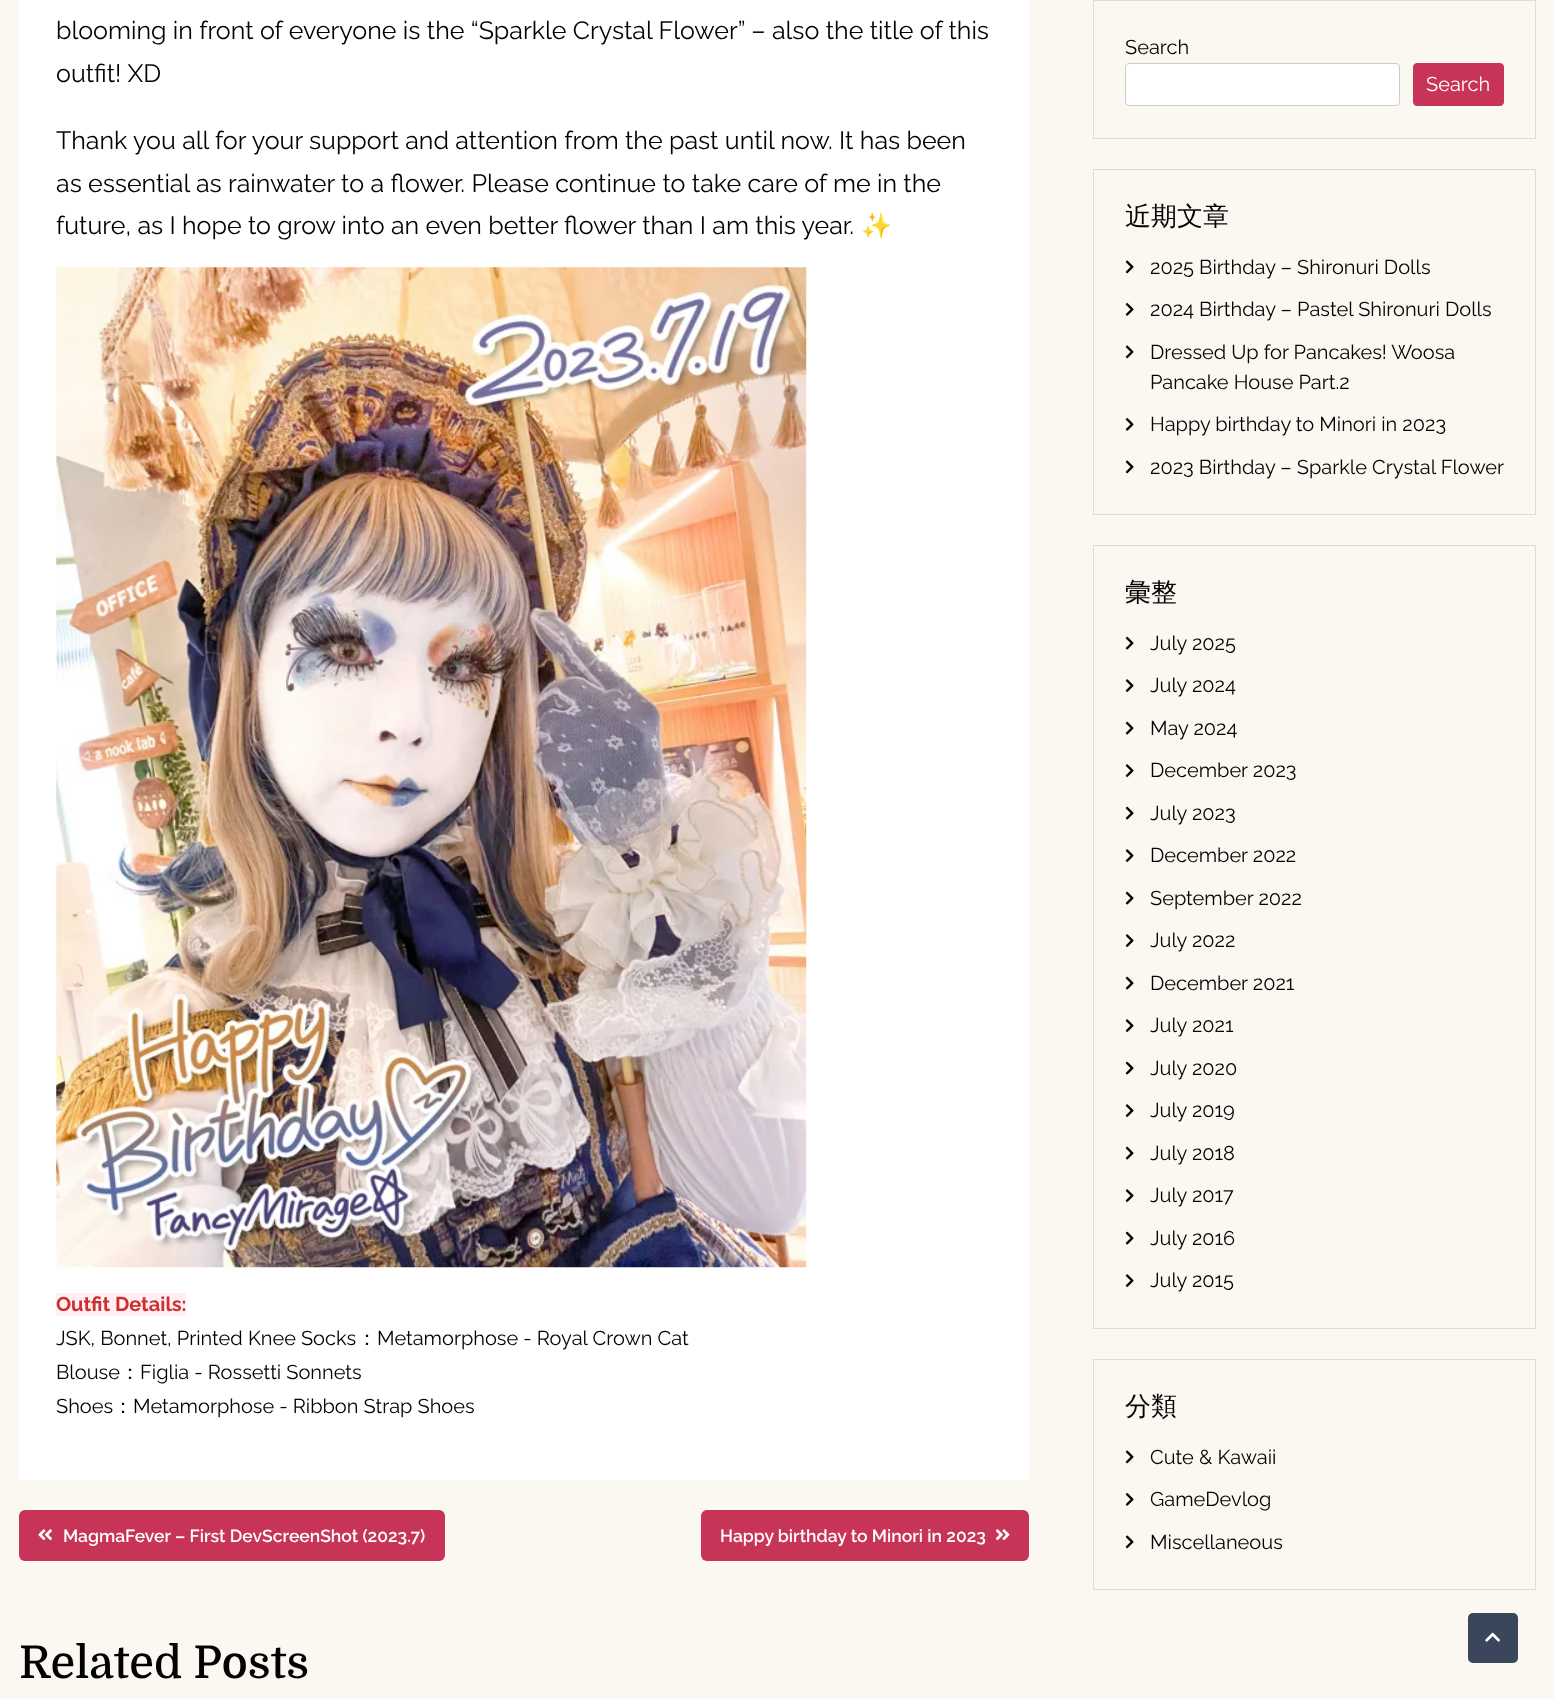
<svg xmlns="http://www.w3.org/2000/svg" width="1554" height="1699">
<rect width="100%" height="100%" fill="#fbf8f1"/>
<rect x="19" width="1010" height="1480" fill="#fff"/>
<text x="56" y="39" style="font-family:Raleway;font-size:25px;fill:#020202">blooming in front of everyone is the “Sparkle Crystal Flower” – also the title of this</text>
<text x="56" y="82" style="font-family:Raleway;font-size:25px;fill:#020202">outfit! XD</text>
<text x="56" y="149" style="font-family:Raleway;font-size:25px;fill:#020202">Thank you all for your support and attention from the past until now. It has been</text>
<text x="56" y="192" style="font-family:Raleway;font-size:25px;fill:#020202">as essential as rainwater to a flower. Please continue to take care of me in the</text>
<text x="56" y="234" style="font-family:Raleway;font-size:25px;fill:#020202">future, as I hope to grow into an even better flower than I am this year.</text>
<text x="861" y="234" style="font-family:Noto Color Emoji;font-size:25px;fill:#020202">✨</text>
<image x="56" y="267" width="751" height="1001" href="media/1.png"/>
<rect x="56" y="1293" width="130" height="23" fill="#ffeef2"/>
<text x="56" y="1311" style="font-family:Raleway;font-size:20px;font-weight:bold;fill:#cf2e2e">Outfit Details:</text>
<text x="56" y="1345" style="font-family:Raleway;font-size:20px;fill:#020202">JSK, Bonnet, Printed Knee Socks</text>
<text x="357" y="1345" style="font-family:WenQuanYi Zen Hei;font-size:20px;font-weight:500;fill:#020202">：</text>
<text x="377" y="1345" style="font-family:Raleway;font-size:20px;fill:#020202">Metamorphose - Royal Crown Cat</text>
<text x="56" y="1379" style="font-family:Raleway;font-size:20px;fill:#020202">Blouse</text>
<text x="120" y="1379" style="font-family:WenQuanYi Zen Hei;font-size:20px;font-weight:500;fill:#020202">：</text>
<text x="140" y="1379" style="font-family:Raleway;font-size:20px;fill:#020202">Figlia - Rossetti Sonnets</text>
<text x="56" y="1413" style="font-family:Raleway;font-size:20px;fill:#020202">Shoes</text>
<text x="113" y="1413" style="font-family:WenQuanYi Zen Hei;font-size:20px;font-weight:500;fill:#020202">：</text>
<text x="133" y="1413" style="font-family:Raleway;font-size:20px;fill:#020202">Metamorphose - Ribbon Strap Shoes</text>
<rect x="19" y="1510" width="426" height="51" rx="6" fill="#c83458"/>
<image x="38" y="1529" width="14" height="12" href="media/2.png"/>
<text x="63" y="1542" style="font-family:Raleway;font-size:17.5px;font-weight:600;fill:#fff">MagmaFever – First DevScreenShot (2023.7)</text>
<rect x="701" y="1510" width="328" height="51" rx="6" fill="#c83458"/>
<text x="720" y="1542" style="font-family:Raleway;font-size:17.5px;font-weight:600;fill:#fff">Happy birthday to Minori in 2023</text>
<image x="995" y="1529" width="15" height="12" href="media/3.png"/>
<text x="19" y="1678" style="font-family:Domine;font-size:45px;font-weight:500;fill:#020202">Related Posts</text>
<rect x="1093.5" y="0.5" width="442" height="138" fill="none" stroke="#ddd"/>
<text x="1125" y="54" style="font-family:Raleway;font-size:20px;fill:#020202">Search</text>
<rect x="1125.5" y="63.5" width="274" height="42" rx="3.5" fill="#fff" stroke="#ccc"/>
<rect x="1413.5" y="63.5" width="90" height="42" rx="3.5" fill="#c83458" stroke="#c83458"/>
<text x="1426" y="91" style="font-family:Raleway;font-size:20px;fill:#fff">Search</text>
<rect x="1093.5" y="169.5" width="442" height="345" fill="none" stroke="#ddd"/>
<text x="1125" y="225" style="font-family:WenQuanYi Zen Hei;font-size:26px;font-weight:500;fill:#020202">近期文章</text>
<image x="1125" y="260" width="9" height="14" href="media/4.png"/>
<text x="1150" y="274" style="font-family:Raleway;font-size:20px;fill:#020202">2025 Birthday – Shironuri Dolls</text>
<image x="1125" y="303" width="9" height="13" href="media/5.png"/>
<text x="1150" y="316" style="font-family:Raleway;font-size:20px;fill:#020202">2024 Birthday – Pastel Shironuri Dolls</text>
<image x="1125" y="345" width="9" height="14" href="media/4.png"/>
<text x="1150" y="359" style="font-family:Raleway;font-size:20px;fill:#020202">Dressed Up for Pancakes! Woosa</text>
<text x="1150" y="389" style="font-family:Raleway;font-size:20px;fill:#020202">Pancake House Part.2</text>
<image x="1125" y="418" width="9" height="13" href="media/5.png"/>
<text x="1150" y="431" style="font-family:Raleway;font-size:20px;fill:#020202">Happy birthday to Minori in 2023</text>
<image x="1125" y="460" width="9" height="14" href="media/4.png"/>
<text x="1150" y="474" style="font-family:Raleway;font-size:20px;fill:#020202">2023 Birthday – Sparkle Crystal Flower</text>
<rect x="1093.5" y="545.5" width="442" height="783" fill="none" stroke="#ddd"/>
<text x="1125" y="601" style="font-family:WenQuanYi Zen Hei;font-size:26px;font-weight:500;fill:#020202">彙整</text>
<image x="1125" y="636" width="9" height="14" href="media/6.png"/>
<text x="1150" y="650" style="font-family:Raleway;font-size:20px;fill:#020202">July 2025</text>
<image x="1125" y="679" width="9" height="13" href="media/7.png"/>
<text x="1150" y="692" style="font-family:Raleway;font-size:20px;fill:#020202">July 2024</text>
<image x="1125" y="721" width="9" height="14" href="media/6.png"/>
<text x="1150" y="735" style="font-family:Raleway;font-size:20px;fill:#020202">May 2024</text>
<image x="1125" y="764" width="9" height="13" href="media/7.png"/>
<text x="1150" y="777" style="font-family:Raleway;font-size:20px;fill:#020202">December 2023</text>
<image x="1125" y="806" width="9" height="14" href="media/6.png"/>
<text x="1150" y="820" style="font-family:Raleway;font-size:20px;fill:#020202">July 2023</text>
<image x="1125" y="849" width="9" height="13" href="media/7.png"/>
<text x="1150" y="862" style="font-family:Raleway;font-size:20px;fill:#020202">December 2022</text>
<image x="1125" y="891" width="9" height="14" href="media/6.png"/>
<text x="1150" y="905" style="font-family:Raleway;font-size:20px;fill:#020202">September 2022</text>
<image x="1125" y="934" width="9" height="13" href="media/7.png"/>
<text x="1150" y="947" style="font-family:Raleway;font-size:20px;fill:#020202">July 2022</text>
<image x="1125" y="976" width="9" height="14" href="media/6.png"/>
<text x="1150" y="990" style="font-family:Raleway;font-size:20px;fill:#020202">December 2021</text>
<image x="1125" y="1019" width="9" height="13" href="media/7.png"/>
<text x="1150" y="1032" style="font-family:Raleway;font-size:20px;fill:#020202">July 2021</text>
<image x="1125" y="1061" width="9" height="14" href="media/6.png"/>
<text x="1150" y="1075" style="font-family:Raleway;font-size:20px;fill:#020202">July 2020</text>
<image x="1125" y="1104" width="9" height="13" href="media/7.png"/>
<text x="1150" y="1117" style="font-family:Raleway;font-size:20px;fill:#020202">July 2019</text>
<image x="1125" y="1146" width="9" height="14" href="media/6.png"/>
<text x="1150" y="1160" style="font-family:Raleway;font-size:20px;fill:#020202">July 2018</text>
<image x="1125" y="1189" width="9" height="13" href="media/7.png"/>
<text x="1150" y="1202" style="font-family:Raleway;font-size:20px;fill:#020202">July 2017</text>
<image x="1125" y="1231" width="9" height="14" href="media/6.png"/>
<text x="1150" y="1245" style="font-family:Raleway;font-size:20px;fill:#020202">July 2016</text>
<image x="1125" y="1274" width="9" height="13" href="media/7.png"/>
<text x="1150" y="1287" style="font-family:Raleway;font-size:20px;fill:#020202">July 2015</text>
<rect x="1093.5" y="1359.5" width="442" height="230" fill="none" stroke="#ddd"/>
<text x="1125" y="1415" style="font-family:WenQuanYi Zen Hei;font-size:26px;font-weight:500;fill:#020202">分類</text>
<image x="1125" y="1450" width="9" height="14" href="media/4.png"/>
<text x="1150" y="1464" style="font-family:Raleway;font-size:20px;fill:#020202">Cute &amp; Kawaii</text>
<image x="1125" y="1493" width="9" height="13" href="media/5.png"/>
<text x="1150" y="1506" style="font-family:Raleway;font-size:20px;fill:#020202">GameDevlog</text>
<image x="1125" y="1535" width="9" height="14" href="media/4.png"/>
<text x="1150" y="1549" style="font-family:Raleway;font-size:20px;fill:#020202">Miscellaneous</text>
<rect x="1468" y="1613" width="50" height="50" rx="5" fill="#3a465c"/>
<image x="1485" y="1632" width="16" height="10" href="media/8.png"/>
</svg>
